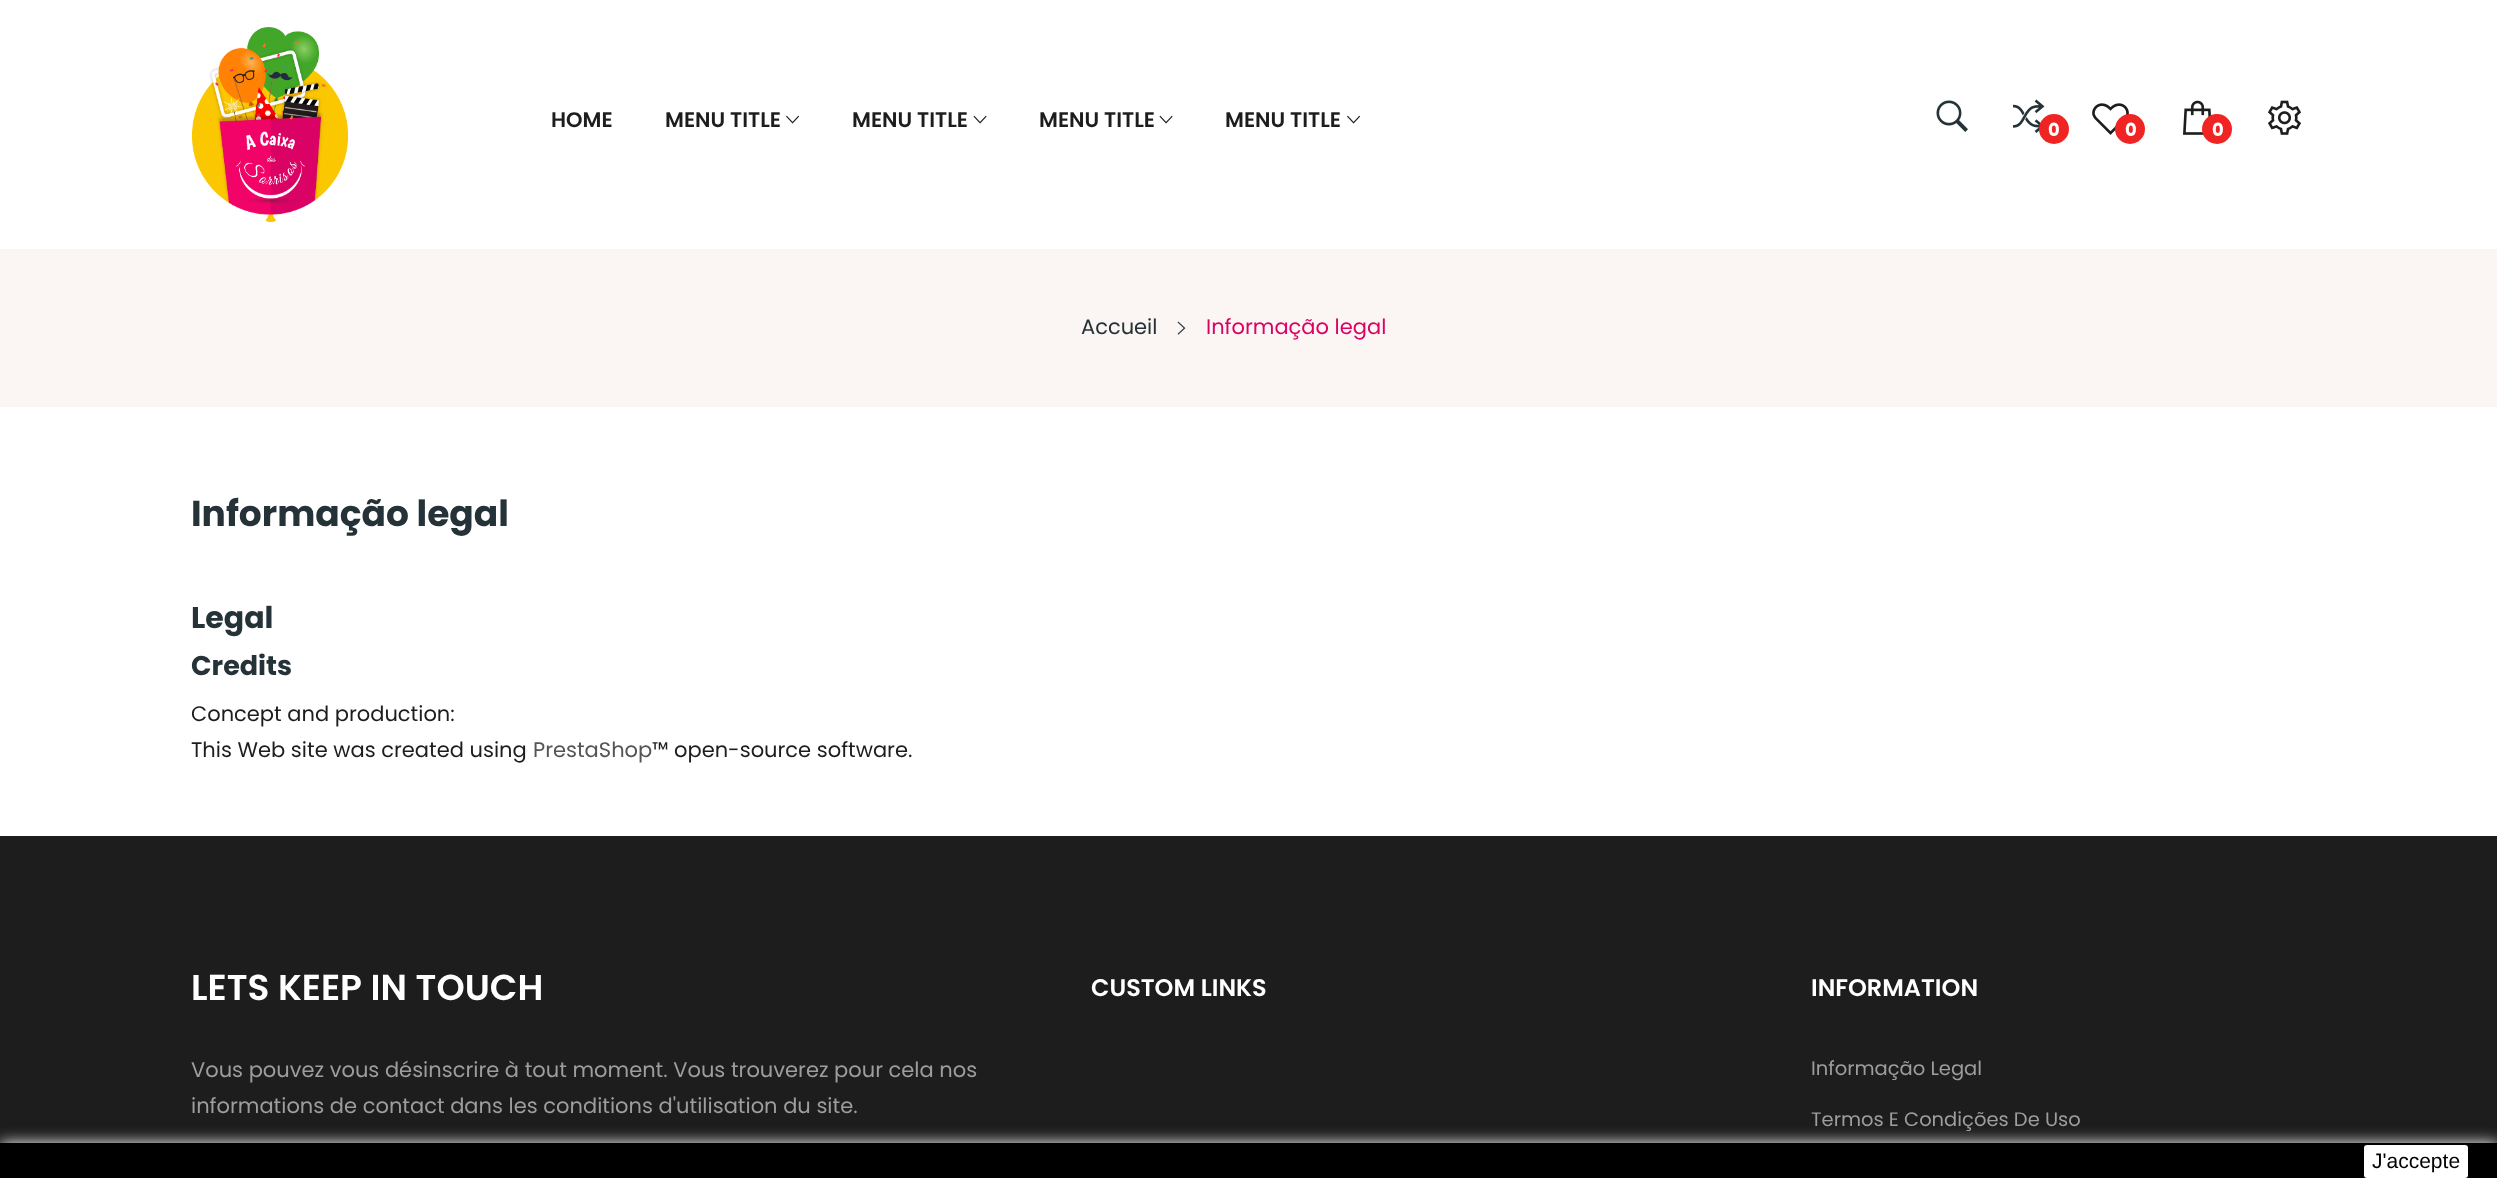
<svg xmlns="http://www.w3.org/2000/svg" width="2497" height="1178">
<rect width="100%" height="100%" fill="#fff"/>
<image x="192" y="27" width="156" height="195" href="media/1.png"/>
<text x="551" y="127" style="font-family:Poppins;font-size:21px;font-weight:600;fill:#1d1d1d">HOME</text>
<text x="665" y="127" style="font-family:Poppins;font-size:21px;font-weight:600;fill:#1d1d1d">MENU TITLE</text>
<image x="786" y="115" width="13" height="9" href="media/2.png"/>
<text x="852" y="127" style="font-family:Poppins;font-size:21px;font-weight:600;fill:#1d1d1d">MENU TITLE</text>
<image x="973" y="115" width="14" height="9" href="media/3.png"/>
<text x="1039" y="127" style="font-family:Poppins;font-size:21px;font-weight:600;fill:#1d1d1d">MENU TITLE</text>
<image x="1159" y="115" width="14" height="9" href="media/3.png"/>
<text x="1225" y="127" style="font-family:Poppins;font-size:21px;font-weight:600;fill:#1d1d1d">MENU TITLE</text>
<image x="1347" y="115" width="13" height="9" href="media/2.png"/>
<image x="1936" y="100" width="32" height="32" href="media/4.png"/>
<image x="2013" y="99" width="32" height="34" href="media/5.png"/>
<circle cx="2054" cy="129" r="15" fill="#f12424"/>
<text x="2048" y="136" style="font-family:Poppins;font-size:18px;font-weight:bold;fill:#fff">0</text>
<image x="2092" y="103" width="37" height="32" href="media/6.png"/>
<circle cx="2130" cy="129" r="15" fill="#f12424"/>
<text x="2125" y="136" style="font-family:Poppins;font-size:18px;font-weight:bold;fill:#fff">0</text>
<image x="2183" y="100" width="28" height="35" href="media/7.png"/>
<circle cx="2217" cy="129" r="15" fill="#f12424"/>
<text x="2212" y="136" style="font-family:Poppins;font-size:18px;font-weight:bold;fill:#fff">0</text>
<image x="2268" y="100" width="33" height="35" href="media/8.png"/>
<rect y="249" width="2497" height="158" fill="#fbf6f3"/>
<text x="1081" y="334" style="font-family:Poppins;font-size:21px;fill:#253237">Accueil</text>
<image x="1177" y="321" width="9" height="14" href="media/9.png"/>
<text x="1206" y="334" style="font-family:Poppins;font-size:21px;fill:#da0265">Informação legal</text>
<text x="191" y="526" style="font-family:Poppins;font-size:36px;font-weight:bold;fill:#253237">Informação legal</text>
<text x="191" y="628" style="font-family:Poppins;font-size:30px;font-weight:bold;fill:#253237">Legal</text>
<text x="191" y="675" style="font-family:Poppins;font-size:27px;font-weight:bold;fill:#253237">Credits</text>
<text x="191" y="721" style="font-family:Poppins;font-size:21px;fill:#1d1d1d">Concept and production:</text>
<text x="191" y="757" style="font-family:Poppins;font-size:21px;fill:#1d1d1d">This Web site was created using</text>
<text x="533" y="757" style="font-family:Poppins;font-size:21px;fill:#555">PrestaShop</text>
<text x="652" y="757" style="font-family:Poppins;font-size:21px;fill:#1d1d1d">™ open-source software.</text>
<rect y="836" width="2497" height="307" fill="#1d1d1d"/>
<text x="191" y="1000" style="font-family:Poppins;font-size:36px;font-weight:600;fill:#fff">LETS KEEP IN TOUCH</text>
<text x="191" y="1077" style="font-family:Poppins;font-size:21px;fill:#9d9d9d">Vous pouvez vous désinscrire à tout moment. Vous trouverez pour cela nos</text>
<text x="191" y="1113" style="font-family:Poppins;font-size:21px;fill:#9d9d9d">informations de contact dans les conditions d'utilisation du site.</text>
<text x="1091" y="996" style="font-family:Poppins;font-size:24px;font-weight:600;fill:#fff">CUSTOM LINKS</text>
<text x="1811" y="996" style="font-family:Poppins;font-size:24px;font-weight:600;fill:#fff">INFORMATION</text>
<text x="1811" y="1075" style="font-family:Poppins;font-size:19.5px;fill:#9d9d9d">Informação Legal</text>
<text x="1811" y="1126" style="font-family:Poppins;font-size:19.5px;fill:#9d9d9d">Termos E Condições De Uso</text>
<rect y="1143" width="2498" height="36" fill="#fff" filter="blur(7.5px)"/>
<rect y="1143" width="2497" height="35" fill="#000"/>
<rect x="2364" y="1145" width="104" height="33" rx="3" fill="#fff"/>
<text x="2372" y="1168" style="font-family:Liberation Sans;font-size:21px;fill:#000">J'accepte</text>
</svg>
